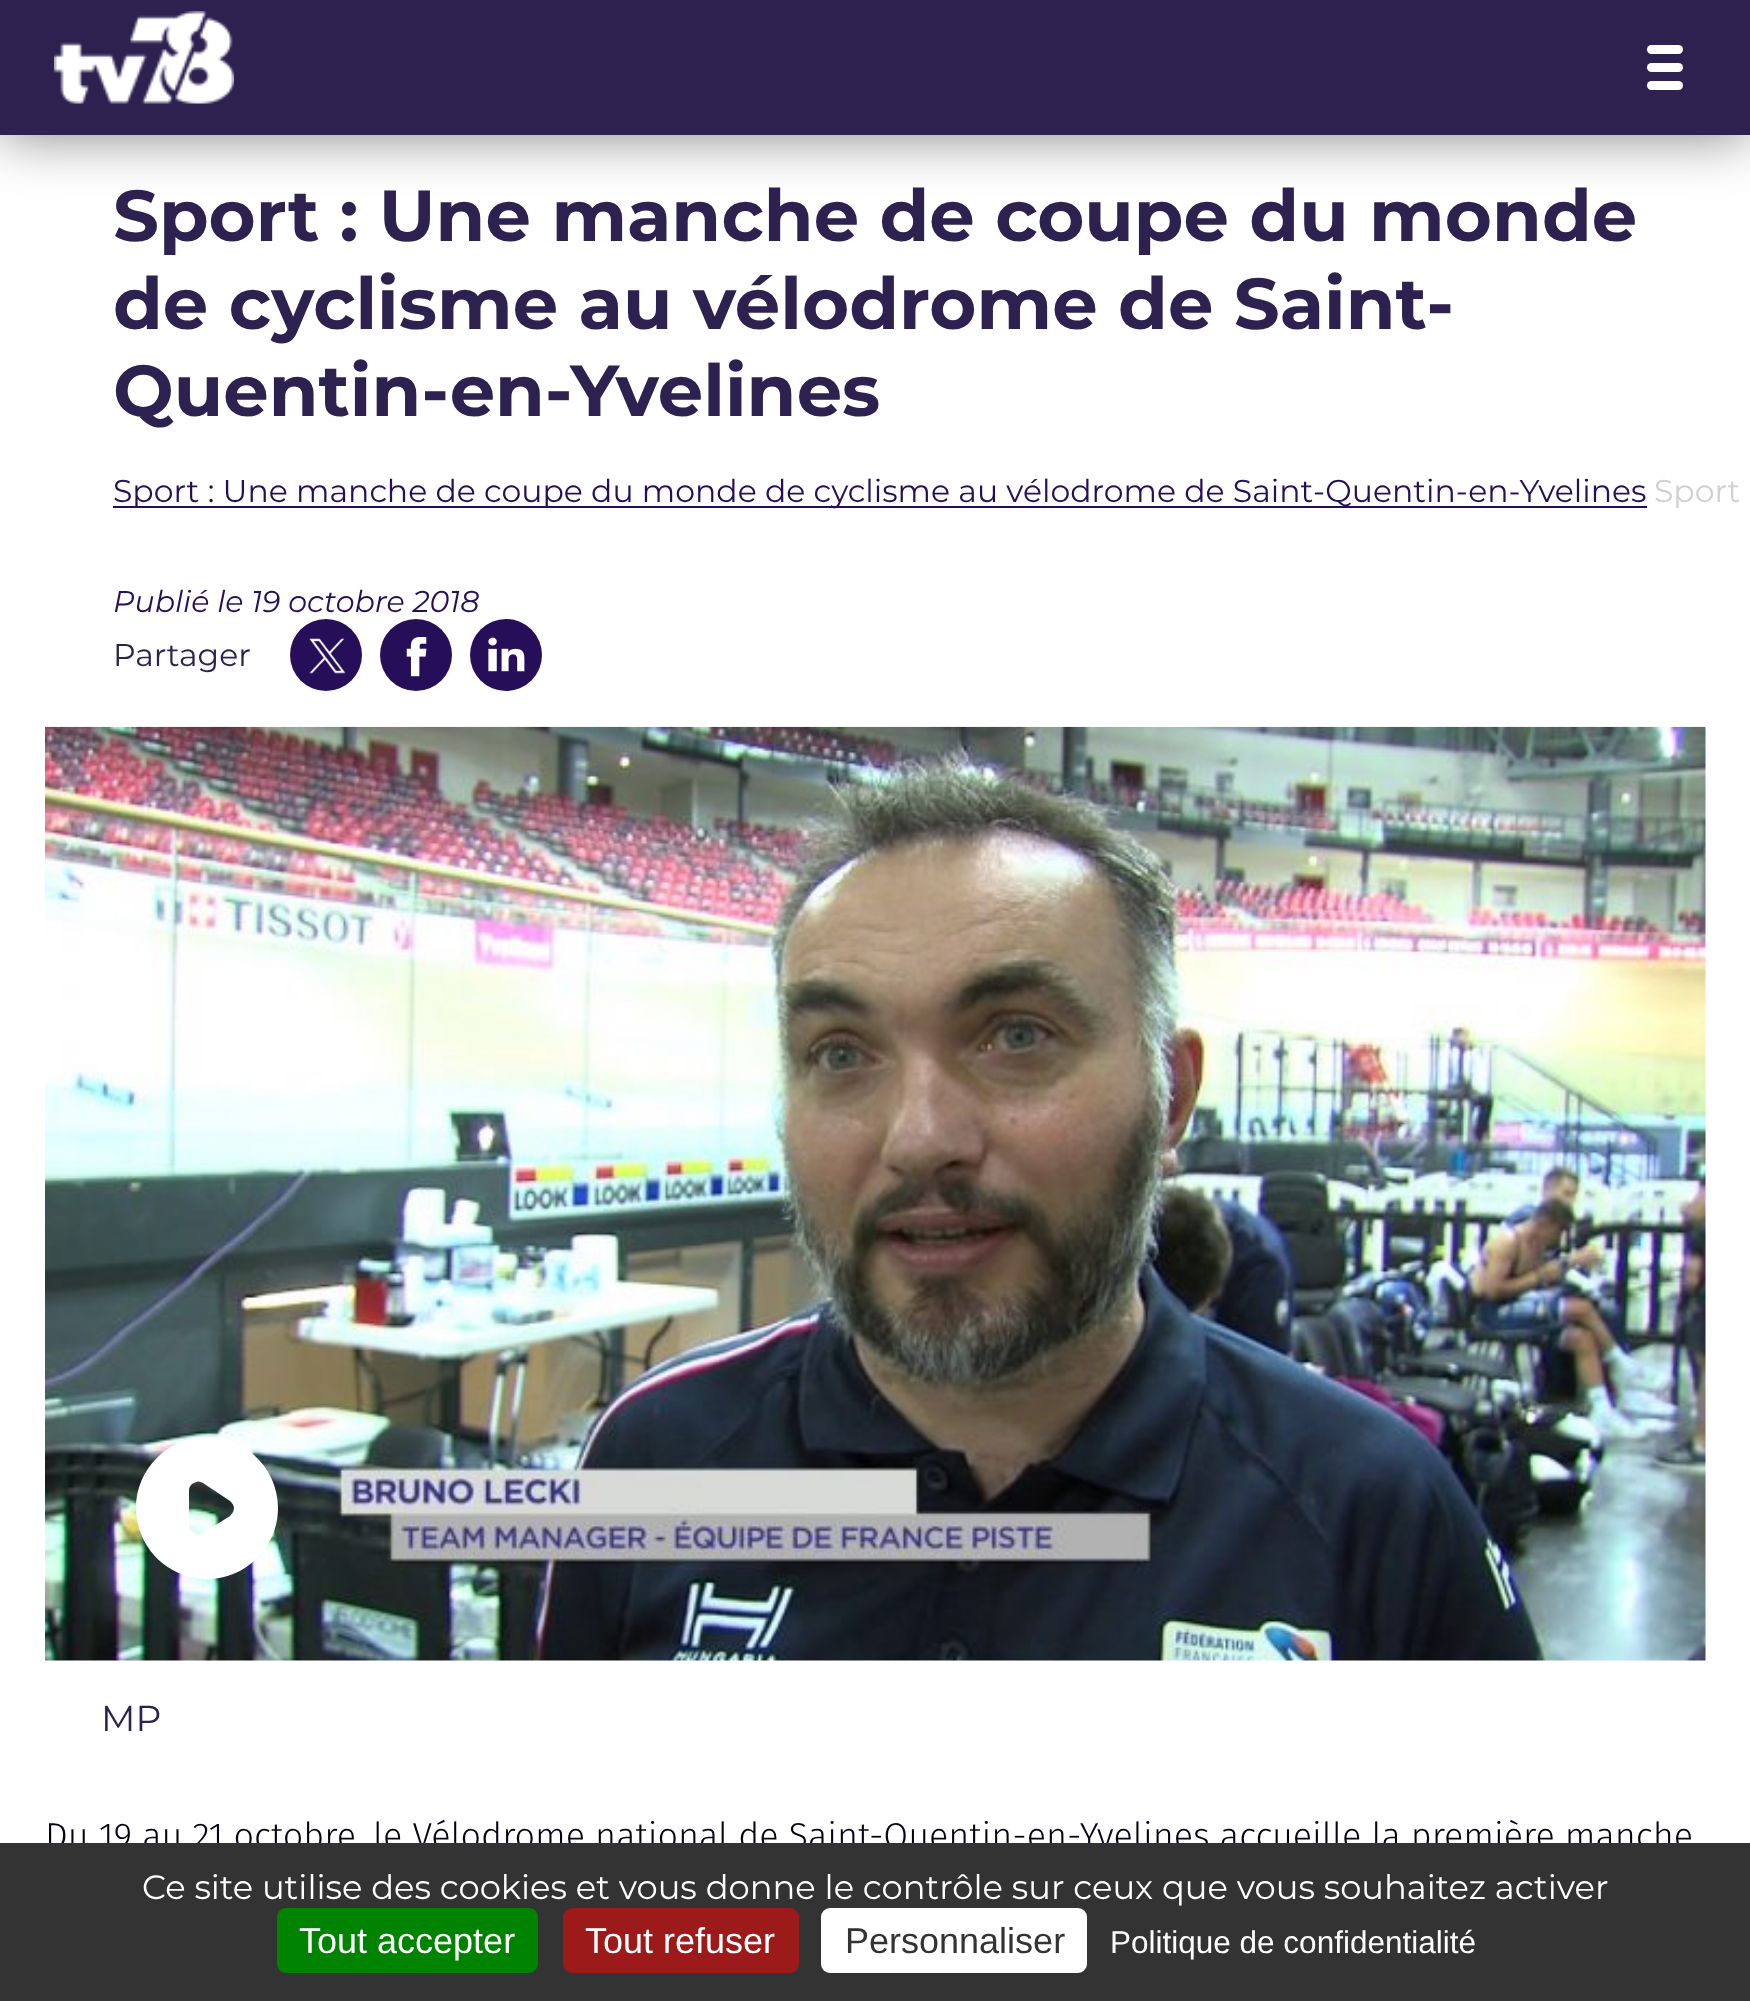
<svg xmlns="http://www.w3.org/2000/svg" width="1750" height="2001">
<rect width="100%" height="100%" fill="#fff"/>
<rect width="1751" height="135" fill="#00000080" filter="blur(28px)"/>
<rect width="1750" height="135" fill="#2d2150"/>
<image x="54" y="11" width="180" height="93" href="media/1.png"/>
<rect x="1647" y="45" width="36" height="9" rx="4.5" fill="#fff"/>
<rect x="1647" y="63" width="36" height="9" rx="4.5" fill="#fff"/>
<rect x="1647" y="81" width="36" height="9" rx="4.5" fill="#fff"/>
<text x="113" y="241" style="font-family:Montserrat;font-size:72px;font-weight:bold;fill:#2d2150">Sport : Une manche de coupe du monde</text>
<text x="113" y="329" style="font-family:Montserrat;font-size:72px;font-weight:bold;fill:#2d2150">de cyclisme au vélodrome de Saint-</text>
<text x="113" y="416" style="font-family:Montserrat;font-size:72px;font-weight:bold;fill:#2d2150">Quentin-en-Yvelines</text>
<rect x="113" y="506" width="1534" height="2" fill="#270e59"/>
<text x="113" y="502" style="font-family:Montserrat;font-size:31.5px;fill:#270e59">Sport : Une manche de coupe du monde de cyclisme au vélodrome de Saint-Quentin-en-Yvelines</text>
<text x="1654" y="502" style="font-family:Montserrat;font-size:31.5px;fill:#d0d0d0">Sport</text>
<text x="113" y="612" style="font-family:Montserrat;font-size:30px;font-style:italic;fill:#270e59">Publié le 19 octobre 2018</text>
<text x="113" y="666" style="font-family:Montserrat;font-size:31.5px;fill:#2d2150">Partager</text>
<circle cx="326" cy="655" r="36" fill="#270e59"/>
<image x="309" y="638" width="37" height="36" href="media/2.png"/>
<circle cx="416" cy="655" r="36" fill="#270e59"/>
<image x="406" y="637" width="21" height="40" href="media/3.png"/>
<circle cx="506" cy="655" r="36" fill="#270e59"/>
<image x="488" y="637" width="37" height="35" href="media/4.png"/>
<image x="45" y="726" width="1661" height="935" href="media/5.png"/>
<path d="M207 1579c39 0 71-32 71-71c0-39-32-71-71-71c-39 0-71 32-71 71c0 39 32 71 71 71zm-4-96c-3-2-6-2-9 0c-3 1-5 4-5 8v35c0 3 2 6 5 8c3 1 6 1 9-1l27-17c2-2 4-5 4-8c0-3-2-5-4-7z" fill="#fff" fill-rule="evenodd"/>
<text x="101" y="1731" style="font-family:Montserrat;font-size:36px;fill:#2d2150">MP</text>
<text x="45" y="1848" style="font-family:Fira Sans;font-size:36px;font-weight:300;fill:#040213">Du 19 au 21 octobre, le Vélodrome national de Saint-Quentin-en-Yvelines accueille la première manche</text>
<rect y="1843" width="1750" height="158" fill="#333"/>
<text x="142" y="1899" style="font-family:Montserrat;font-size:33.75px;fill:#fff">Ce site utilise des cookies et vous donne le contrôle sur ceux que vous souhaitez activer</text>
<rect x="277" y="1908" width="261" height="65" rx="9" fill="#008300"/>
<text x="299" y="1953" style="font-family:Liberation Sans;font-size:36px;fill:#fff">Tout accepter</text>
<rect x="563" y="1908" width="236" height="65" rx="9" fill="#9c1a1a"/>
<text x="585" y="1953" style="font-family:Liberation Sans;font-size:36px;fill:#fff">Tout refuser</text>
<rect x="821" y="1908" width="266" height="65" rx="9" fill="#fff"/>
<text x="845" y="1953" style="font-family:Liberation Sans;font-size:36px;fill:#333">Personnaliser</text>
<text x="1110" y="1953" style="font-family:Liberation Sans;font-size:31.5px;fill:#fff">Politique de confidentialité</text>
</svg>
